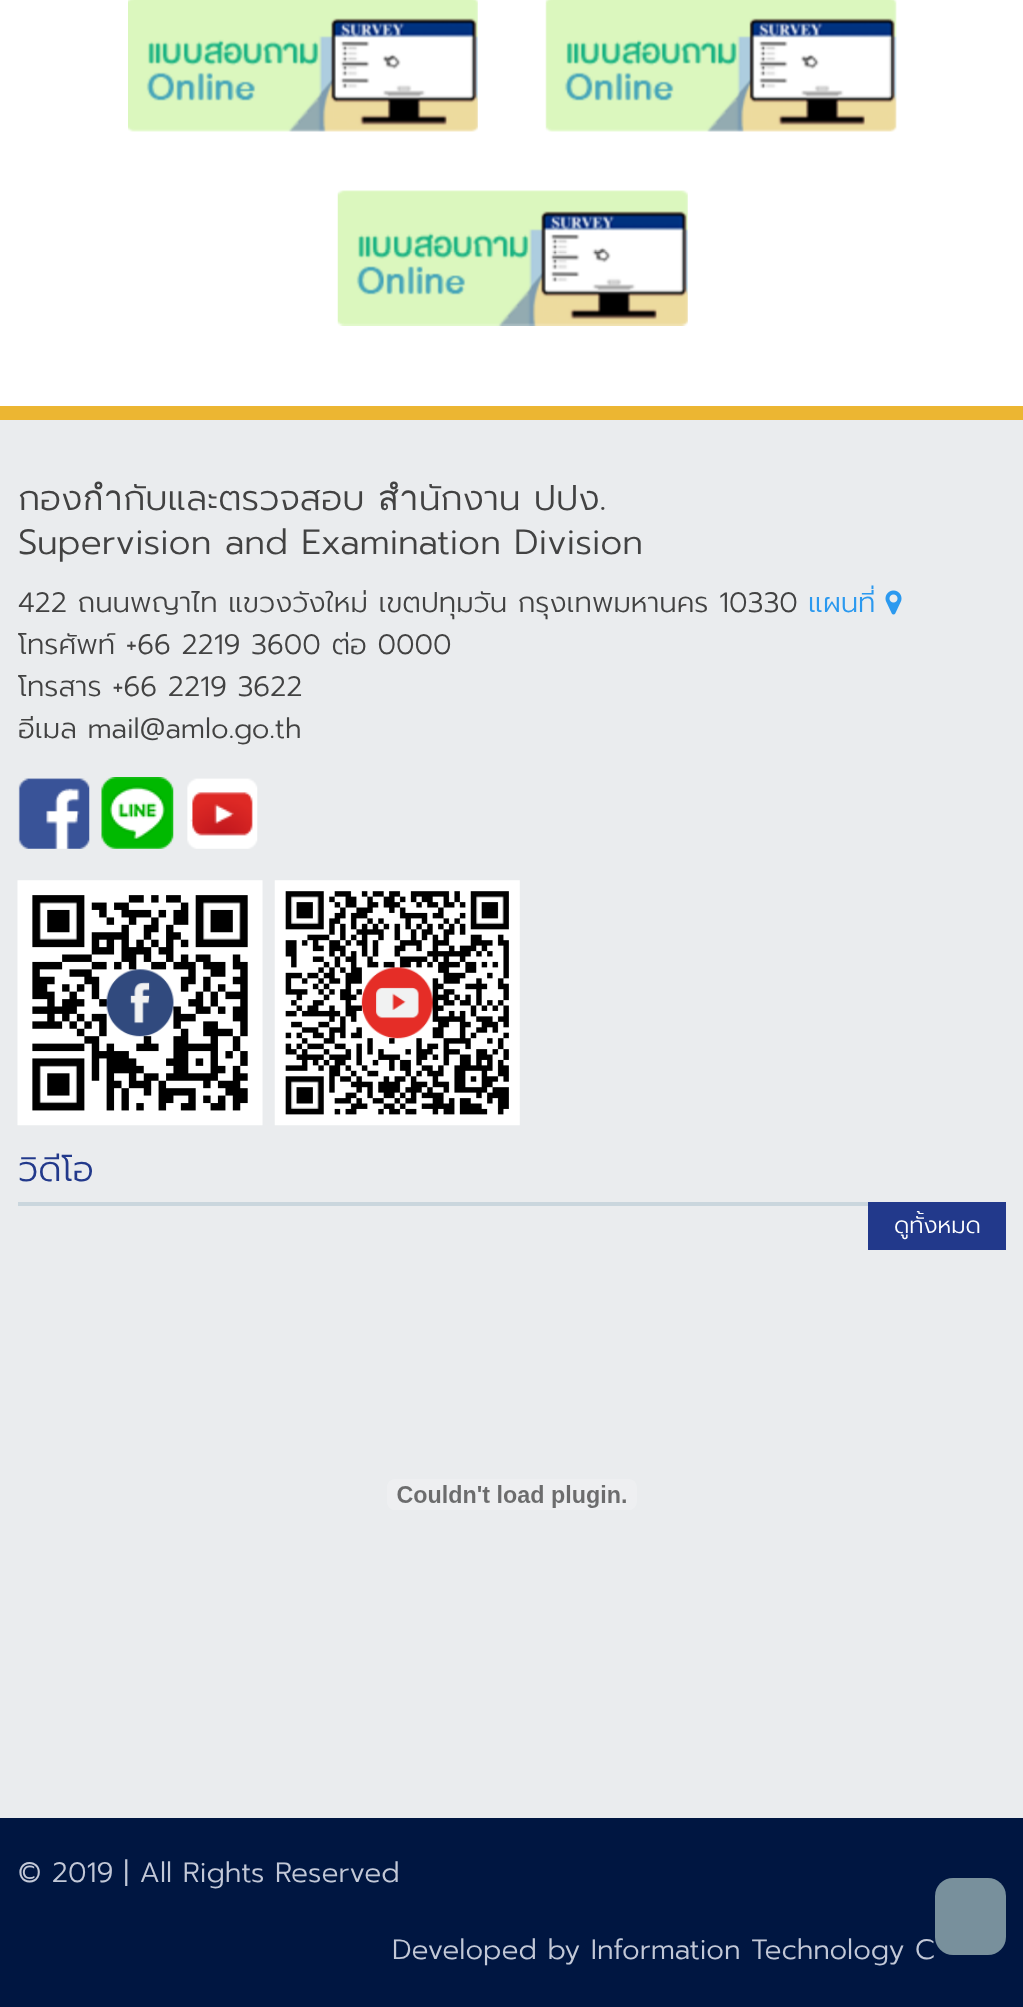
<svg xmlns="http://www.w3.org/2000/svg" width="1023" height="2007">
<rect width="100%" height="100%" fill="#fff"/>
<image x="128" y="0" width="350" height="132" href="media/1.png"/>
<image x="545" y="0" width="352" height="132" href="media/2.png"/>
<image x="337" y="190" width="351" height="136" href="media/3.png"/>
<rect y="406" width="1023" height="14" fill="#ecb632"/>
<rect y="420" width="1023" height="1398" fill="#eaecee"/>
<text x="18" y="510" style="font-family:Prompt;font-size:35px;font-weight:300;fill:#424242">กองกำกับและตรวจสอบ สำนักงาน ปปง.</text>
<text x="18" y="554" style="font-family:Prompt;font-size:35px;font-weight:300;fill:#424242">Supervision and Examination Division</text>
<text x="18" y="612" style="font-family:Prompt;font-size:28px;font-weight:300;fill:#424242">422 ถนนพญาไท แขวงวังใหม่ เขตปทุมวัน กรุงเทพมหานคร 10330</text>
<text x="808" y="612" style="font-family:Prompt;font-size:28px;font-weight:300;fill:#2b99ef">แผนที่</text>
<image x="885" y="590" width="17" height="25" href="media/4.png"/>
<text x="18" y="654" style="font-family:Prompt;font-size:28px;font-weight:300;fill:#424242">โทรศัพท์ +66 2219 3600 ต่อ 0000</text>
<text x="18" y="696" style="font-family:Prompt;font-size:28px;font-weight:300;fill:#424242">โทรสาร +66 2219 3622</text>
<text x="18" y="738" style="font-family:Prompt;font-size:28px;font-weight:300;fill:#424242">อีเมล mail@amlo.go.th</text>
<image x="18" y="778" width="72" height="71" href="media/5.png"/>
<image x="101" y="777" width="73" height="72" href="media/6.png"/>
<image x="187" y="778" width="71" height="71" href="media/7.png"/>
<image x="17" y="880" width="246" height="246" href="media/8.png"/>
<image x="274" y="880" width="246" height="246" href="media/9.png"/>
<rect x="18" y="1202" width="850" height="4" fill="#cad6dd"/>
<text x="18" y="1181" style="font-family:Prompt;font-size:35px;font-weight:300;fill:#22398b">วิดีโอ</text>
<rect x="868" y="1202" width="138" height="48" fill="#22398b"/>
<text x="894" y="1233" style="font-family:Prompt;font-size:23px;font-weight:300;fill:#fff">ดูทั้งหมด</text>
<image x="387" y="1479" width="250" height="31" href="media/10.png"/>
<rect y="1818" width="1023" height="189" fill="#001641"/>
<text x="18" y="1882" style="font-family:Prompt;font-size:28px;font-weight:300;fill:#c2c8d7">© 2019 | All Rights Reserved</text>
<text x="392" y="1959" style="font-family:Prompt;font-size:28px;font-weight:300;fill:#c2c8d7">Developed by Information Technology C</text>
<rect x="935" y="1878" width="71" height="77" rx="18" fill="#78909c"/>
</svg>
